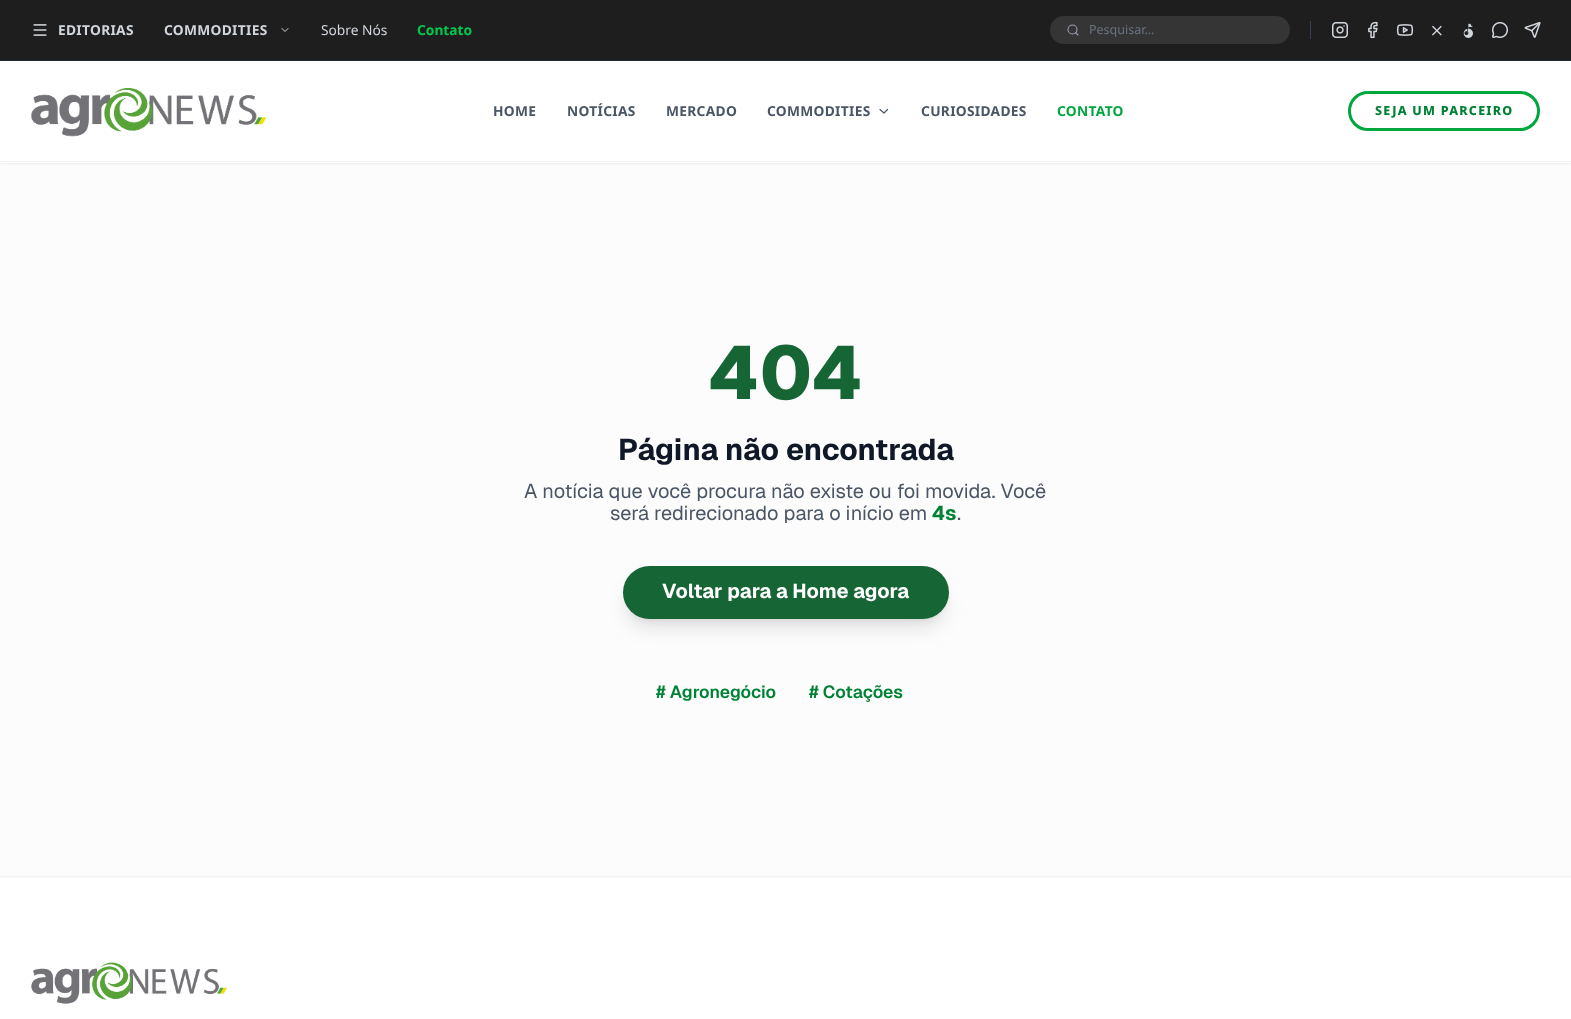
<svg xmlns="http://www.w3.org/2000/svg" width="1571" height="1019">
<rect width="100%" height="100%" fill="#fcfcfc"/>
<rect y="1" width="1571" height="163" fill="#0000000d" filter="blur(1px)"/>
<rect y="61" width="1571" height="102" fill="#fff"/>
<rect width="1571" height="60" fill="#1e1e1e"/>
<rect y="60" width="1571" height="1" fill="#1e2939"/>
<image x="33" y="24" width="14" height="12" href="media/1.png"/>
<text x="58" y="35" style="font-family:Noto Sans;font-size:13.75px;font-weight:bold;letter-spacing:0.3px;fill:#d1d5dc">EDITORIAS</text>
<text x="164" y="35" style="font-family:Noto Sans;font-size:13.75px;font-weight:bold;letter-spacing:0.3px;fill:#d1d5dc">COMMODITIES</text>
<path d="M282 28.5l3 3l3-3" fill="none" stroke="#d1d5dc" stroke-linecap="round" stroke-linejoin="round"/>
<text x="321" y="35" style="font-family:Noto Sans;font-size:13.75px;fill:#d1d5dc">Sobre Nós</text>
<text x="417" y="35" style="font-family:Noto Sans;font-size:13.75px;font-weight:bold;fill:#00c950">Contato</text>
<rect x="1050" y="16" width="240" height="28" rx="14" fill="#353535"/>
<path d="M1078 35l-2.5-2.5" fill="none" stroke="#99a1af" stroke-width="1.1" stroke-linecap="round" stroke-linejoin="round"/>
<circle cx="1072.5" cy="29.5" r="4.5" fill="none" stroke="#99a1af" stroke-width="1.1"/>
<text x="1089" y="34" style="font-family:Noto Sans;font-size:12.5px;fill:#6a7282">Pesquisar...</text>
<rect x="1310" y="21" width="1" height="18" fill="#364153"/>
<image x="1332" y="22" width="16" height="16" href="media/2.png"/>
<image x="1368" y="21" width="10" height="18" href="media/3.png"/>
<image x="1396" y="24" width="18" height="12" href="media/4.png"/>
<image x="1432" y="25" width="10" height="11" href="media/5.png"/>
<image x="1463" y="23" width="10" height="15" href="media/6.png"/>
<image x="1492" y="22" width="16" height="16" href="media/7.png"/>
<image x="1524" y="22" width="17" height="16" href="media/8.png"/>
<rect y="161" width="1571" height="1" fill="#f3f4f6"/>
<image x="30" y="88" width="237" height="49" href="media/9.png"/>
<text x="493" y="116" style="font-family:Noto Sans;font-size:13.75px;font-weight:bold;letter-spacing:0.3px;fill:#4a5565">HOME</text>
<text x="567" y="116" style="font-family:Noto Sans;font-size:13.75px;font-weight:bold;letter-spacing:0.3px;fill:#4a5565">NOTÍCIAS</text>
<text x="666" y="116" style="font-family:Noto Sans;font-size:13.75px;font-weight:bold;letter-spacing:0.3px;fill:#4a5565">MERCADO</text>
<text x="767" y="116" style="font-family:Noto Sans;font-size:13.75px;font-weight:bold;letter-spacing:0.3px;fill:#4a5565">COMMODITIES</text>
<path d="M880 109.5l4 3.5l3.5-3.5" fill="none" stroke="#4a5565" stroke-width="1.2" stroke-linecap="round" stroke-linejoin="round"/>
<text x="921" y="116" style="font-family:Noto Sans;font-size:13.75px;font-weight:bold;letter-spacing:0.3px;fill:#4a5565">CURIOSIDADES</text>
<text x="1057" y="116" style="font-family:Noto Sans;font-size:13.75px;font-weight:bold;letter-spacing:0.3px;fill:#00a63e">CONTATO</text>
<rect x="1349.5" y="92.5" width="189" height="37" rx="18.5" fill="none" stroke="#00a63e" stroke-width="3"/>
<text x="1375" y="115" style="font-family:Noto Sans;font-size:12.5px;font-weight:800;letter-spacing:1.25px;fill:#008236">SEJA UM PARCEIRO</text>
<text x="709" y="399" style="font-family:Geist;font-size:75px;font-weight:800;fill:#166534">404</text>
<text x="618" y="460" style="font-family:Geist;font-size:30px;font-weight:bold;fill:#101828">Página não encontrada</text>
<text x="524" y="498" style="font-family:Geist;font-size:20px;fill:#4a5565">A notícia que você procura não existe ou foi movida. Você</text>
<text x="610" y="520" style="font-family:Geist;font-size:20px;fill:#4a5565">será redirecionado para o início em</text>
<text x="932" y="520" style="font-family:Geist;font-size:20px;font-weight:bold;fill:#008236">4s</text>
<text x="957" y="520" style="font-family:Geist;font-size:20px;fill:#4a5565">.</text>
<rect x="628" y="576" width="316" height="43" rx="21.5" fill="#0000001a" filter="blur(4px)"/>
<rect x="626" y="583" width="319" height="45" rx="22.5" fill="#0000001a" filter="blur(9.5px)"/>
<rect x="623" y="566" width="326" height="53" rx="26.5" fill="#166534"/>
<text x="662" y="598" style="font-family:Geist;font-size:20px;font-weight:bold;fill:#fff">Voltar para a Home agora</text>
<text x="656" y="698" style="font-family:Geist;font-size:17.5px;font-weight:600;fill:#008236"># Agronegócio</text>
<text x="809" y="698" style="font-family:Geist;font-size:17.5px;font-weight:600;fill:#008236"># Cotações</text>
<rect y="878" width="1571" height="141" fill="#fff"/>
<rect y="876" width="1571" height="1" fill="#f3f4f6"/>
<image x="31" y="962" width="196" height="42" href="media/10.png"/>
</svg>
